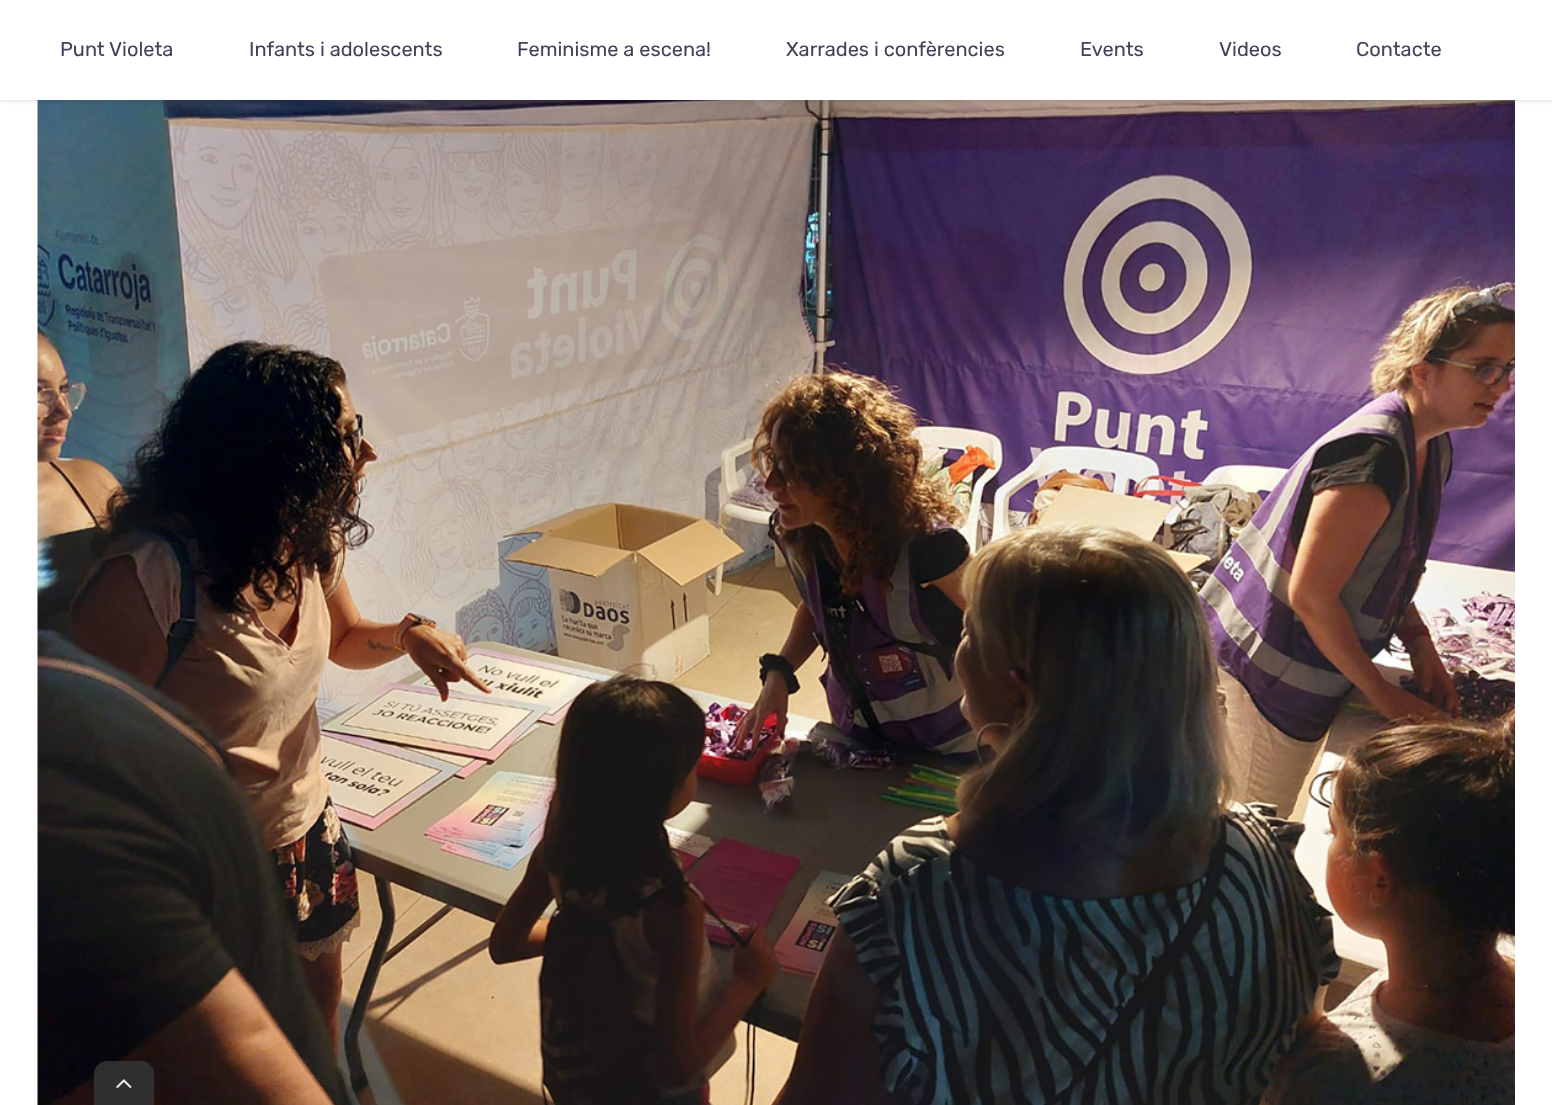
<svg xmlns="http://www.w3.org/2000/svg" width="1552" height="1105">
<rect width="100%" height="100%" fill="#fff"/>
<image x="37" y="100" width="1478" height="1005" href="media/1.png"/>
<rect y="1" width="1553" height="100" fill="#0000001f" filter="blur(2px)"/>
<rect width="1552" height="100" fill="#fff"/>
<text x="60" y="56" style="font-family:Rubik;font-size:20px;fill:#44405a">Punt Violeta</text>
<text x="249" y="56" style="font-family:Rubik;font-size:20px;fill:#44405a">Infants i adolescents</text>
<text x="517" y="56" style="font-family:Rubik;font-size:20px;fill:#44405a">Feminisme a escena!</text>
<text x="786" y="56" style="font-family:Rubik;font-size:20px;fill:#44405a">Xarrades i confèrencies</text>
<text x="1080" y="56" style="font-family:Rubik;font-size:20px;fill:#44405a">Events</text>
<text x="1219" y="56" style="font-family:Rubik;font-size:20px;fill:#44405a">Videos</text>
<text x="1356" y="56" style="font-family:Rubik;font-size:20px;fill:#44405a">Contacte</text>
<path d="M107 1061h34c7 0 13 6 13 13v31h-60v-31c0-7 6-13 13-13z" fill="#333333e6"/>
<image x="116" y="1079" width="16" height="10" href="media/2.png"/>
</svg>
